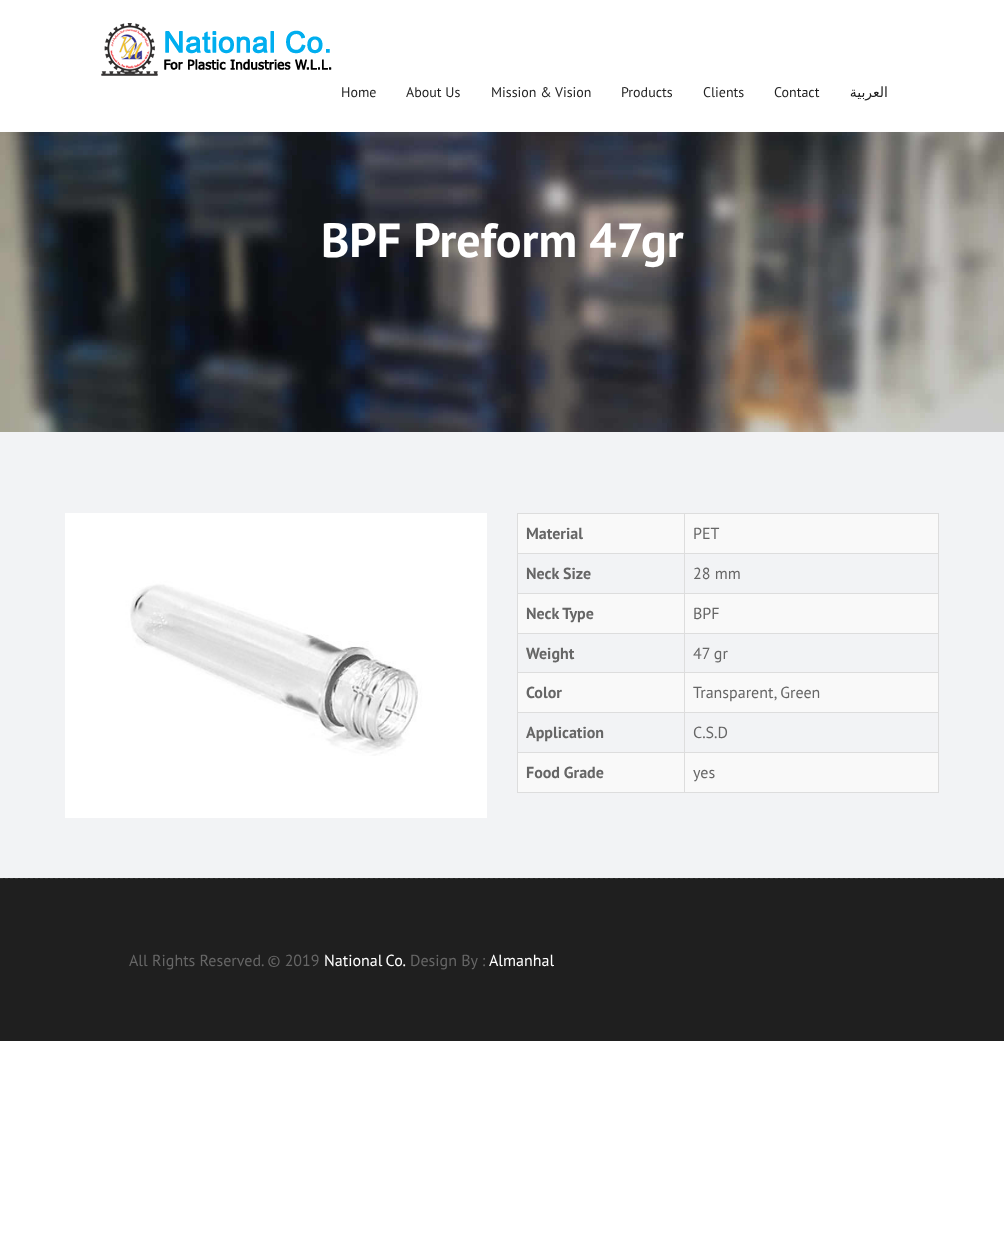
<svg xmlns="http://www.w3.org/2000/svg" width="1004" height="1260">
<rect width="100%" height="100%" fill="#fff"/>
<image x="101" y="23" width="231" height="53" href="media/1.png"/>
<text x="341" y="97" style="font-family:PT Sans;font-size:14px;fill:#1f1f1f">Home</text>
<text x="406" y="97" style="font-family:PT Sans;font-size:14px;fill:#1f1f1f">About Us</text>
<text x="491" y="97" style="font-family:PT Sans;font-size:14px;fill:#1f1f1f">Mission &amp; Vision</text>
<text x="621" y="97" style="font-family:PT Sans;font-size:14px;fill:#1f1f1f">Products</text>
<text x="703" y="97" style="font-family:PT Sans;font-size:14px;fill:#1f1f1f">Clients</text>
<text x="774" y="97" style="font-family:PT Sans;font-size:14px;fill:#1f1f1f">Contact</text>
<text x="888" y="97" style="font-family:DejaVu Sans;font-size:14px;direction:rtl;fill:#1f1f1f">العربية</text>
<image x="0" y="132" width="1004" height="300" href="media/2.png"/>
<text x="321" y="257" style="font-family:PT Sans;font-size:48px;font-weight:bold;fill:#fff">BPF Preform 47gr</text>
<rect y="432" width="1004" height="446" fill="#f2f3f5"/>
<image x="65" y="513" width="422" height="305" href="media/3.png"/>
<rect x="517" y="513" width="422" height="1" fill="#ddd"/>
<rect x="938" y="513" width="1" height="280" fill="#ddd"/>
<rect x="517" y="792" width="422" height="1" fill="#ddd"/>
<rect x="517" y="513" width="1" height="280" fill="#ddd"/>
<rect x="518" y="514" width="420" height="39" fill="#f9f9f9"/>
<text x="526" y="539" style="font-family:PT Sans;font-size:16px;font-weight:bold;fill:#666">Material</text>
<rect x="684" y="553" width="255" height="1" fill="#ddd"/>
<rect x="684" y="593" width="255" height="1" fill="#ddd"/>
<rect x="518" y="594" width="420" height="39" fill="#f9f9f9"/>
<rect x="684" y="633" width="255" height="1" fill="#ddd"/>
<rect x="684" y="672" width="255" height="1" fill="#ddd"/>
<rect x="518" y="673" width="420" height="39" fill="#f9f9f9"/>
<rect x="684" y="712" width="255" height="1" fill="#ddd"/>
<rect x="684" y="752" width="255" height="1" fill="#ddd"/>
<rect x="518" y="753" width="420" height="39" fill="#f9f9f9"/>
<rect x="684" y="752" width="1" height="41" fill="#ddd"/>
<rect x="517" y="752" width="168" height="1" fill="#ddd"/>
<rect x="684" y="712" width="1" height="41" fill="#ddd"/>
<rect x="517" y="712" width="168" height="1" fill="#ddd"/>
<rect x="684" y="672" width="1" height="41" fill="#ddd"/>
<rect x="517" y="672" width="168" height="1" fill="#ddd"/>
<rect x="684" y="633" width="1" height="40" fill="#ddd"/>
<rect x="517" y="633" width="168" height="1" fill="#ddd"/>
<rect x="684" y="593" width="1" height="41" fill="#ddd"/>
<rect x="517" y="593" width="168" height="1" fill="#ddd"/>
<rect x="684" y="553" width="1" height="41" fill="#ddd"/>
<rect x="517" y="553" width="168" height="1" fill="#ddd"/>
<rect x="684" y="513" width="1" height="41" fill="#ddd"/>
<text x="693" y="539" style="font-family:PT Sans;font-size:16px;fill:#666">PET</text>
<text x="526" y="579" style="font-family:PT Sans;font-size:16px;font-weight:bold;fill:#666">Neck Size</text>
<text x="693" y="579" style="font-family:PT Sans;font-size:16px;fill:#666">28 mm</text>
<text x="526" y="619" style="font-family:PT Sans;font-size:16px;font-weight:bold;fill:#666">Neck Type</text>
<text x="693" y="619" style="font-family:PT Sans;font-size:16px;fill:#666">BPF</text>
<text x="526" y="659" style="font-family:PT Sans;font-size:16px;font-weight:bold;fill:#666">Weight</text>
<text x="693" y="659" style="font-family:PT Sans;font-size:16px;fill:#666">47 gr</text>
<text x="526" y="698" style="font-family:PT Sans;font-size:16px;font-weight:bold;fill:#666">Color</text>
<text x="693" y="698" style="font-family:PT Sans;font-size:16px;fill:#666">Transparent, Green</text>
<text x="526" y="738" style="font-family:PT Sans;font-size:16px;font-weight:bold;fill:#666">Application</text>
<text x="693" y="738" style="font-family:PT Sans;font-size:16px;fill:#666">C.S.D</text>
<text x="526" y="778" style="font-family:PT Sans;font-size:16px;font-weight:bold;fill:#666">Food Grade</text>
<text x="693" y="778" style="font-family:PT Sans;font-size:16px;fill:#666">yes</text>
<rect y="878" width="1004" height="163" fill="#1f1f1f"/>
<path d="M0 878.5h1004" fill="none" stroke="#353535" stroke-dasharray="3 2"/>
<text x="129" y="966" style="font-family:PT Sans;font-size:16px;fill:#666">All Rights Reserved. © 2019</text>
<text x="324" y="966" word-spacing="-1" style="font-family:PT Sans;font-size:16px;fill:#fff">National Co.</text>
<text x="410" y="966" style="font-family:PT Sans;font-size:16px;fill:#666">Design By :</text>
<text x="489" y="966" style="font-family:PT Sans;font-size:16px;fill:#fff">Almanhal</text>
</svg>
